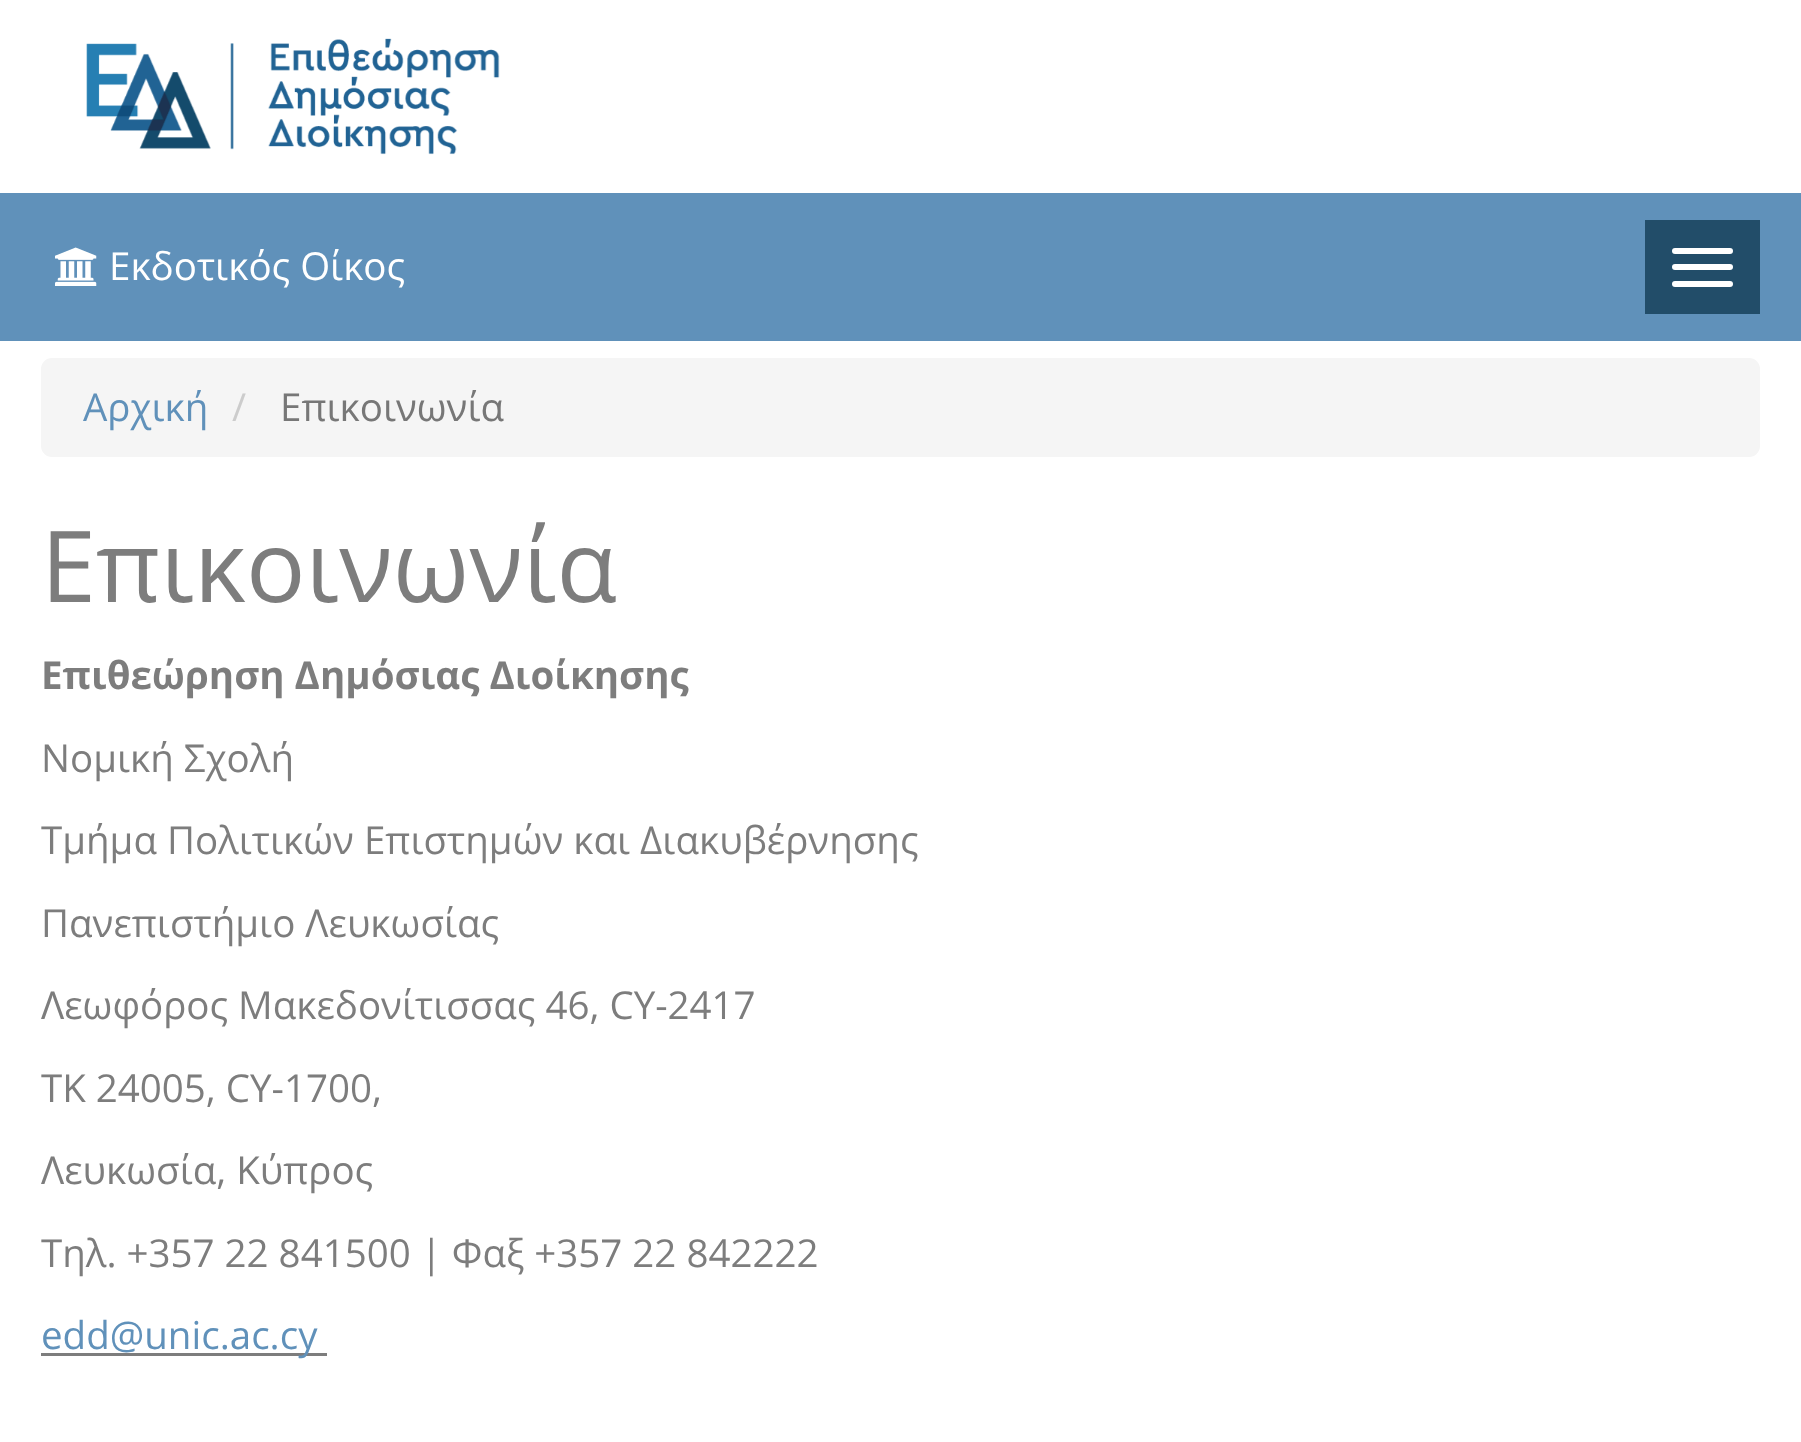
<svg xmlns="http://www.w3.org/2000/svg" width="1801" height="1442">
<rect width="100%" height="100%" fill="#fff"/>
<image x="86" y="38" width="414" height="117" href="media/1.png"/>
<rect y="193" width="1801" height="148" fill="#6091ba"/>
<image x="55" y="247" width="42" height="39" href="media/2.png"/>
<text x="109" y="280" style="font-family:Open Sans;font-size:38.5px;fill:#fff">Εκδοτικός Οίκος</text>
<rect x="1645" y="220" width="115" height="94" fill="#224d69"/>
<rect x="1672" y="248" width="61" height="6" rx="3" fill="#fff"/>
<rect x="1672" y="264" width="61" height="6" rx="3" fill="#fff"/>
<rect x="1672" y="281" width="61" height="6" rx="3" fill="#fff"/>
<rect x="41" y="358" width="1719" height="99" rx="11" fill="#f5f5f5"/>
<text x="83" y="421" style="font-family:Open Sans;font-size:38.5px;fill:#6091ba">Αρχική</text>
<text x="232" y="421" style="font-family:Open Sans;font-size:38.5px;fill:#ccc">/</text>
<text x="280" y="421" style="font-family:Open Sans;font-size:38.5px;fill:#777">Επικοινωνία</text>
<text x="41" y="602" style="font-family:Open Sans;font-size:99px;fill:#7d7d7d">Επικοινωνία</text>
<text x="41" y="689" style="font-family:Open Sans;font-size:38.5px;font-weight:bold;fill:#7d7d7d">Επιθεώρηση Δημόσιας Διοίκησης</text>
<text x="41" y="772" style="font-family:Open Sans;font-size:38.5px;fill:#7d7d7d">Νομική Σχολή</text>
<text x="41" y="854" style="font-family:Open Sans;font-size:38.5px;fill:#7d7d7d">Τμήμα Πολιτικών Επιστημών και Διακυβέρνησης</text>
<text x="41" y="937" style="font-family:Open Sans;font-size:38.5px;fill:#7d7d7d">Πανεπιστήμιο Λευκωσίας</text>
<text x="41" y="1019" style="font-family:Open Sans;font-size:38.5px;fill:#7d7d7d">Λεωφόρος Μακεδονίτισσας 46, CY-2417</text>
<text x="41" y="1102" style="font-family:Open Sans;font-size:38.5px;fill:#7d7d7d">ΤΚ 24005, CY-1700,</text>
<text x="41" y="1184" style="font-family:Open Sans;font-size:38.5px;fill:#7d7d7d">Λευκωσία, Κύπρος</text>
<text x="41" y="1267" style="font-family:Open Sans;font-size:38.5px;fill:#7d7d7d">Τηλ. +357 22 841500 | Φαξ +357 22 842222</text>
<rect x="41" y="1353" width="286" height="3" fill="#7d7d7d"/>
<text x="41" y="1349" style="font-family:Open Sans;font-size:38.5px;fill:#6091ba">edd@unic.ac.cy</text>
</svg>
